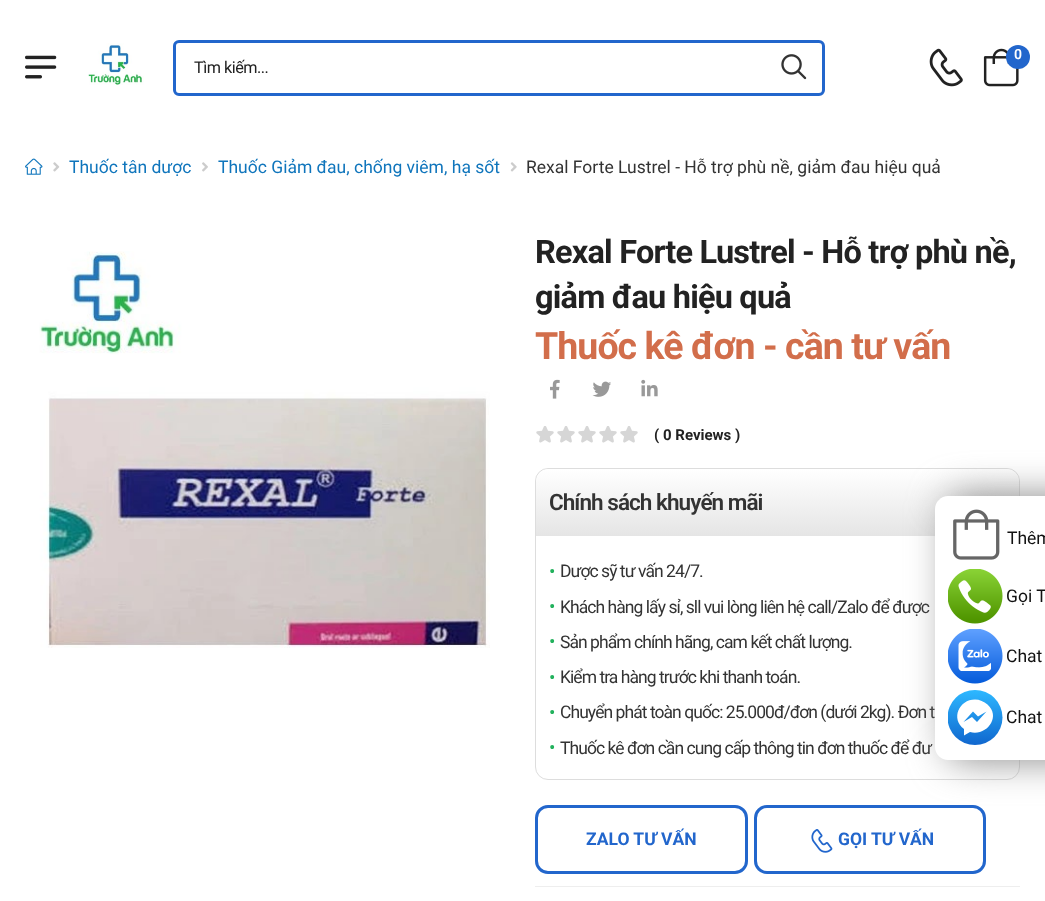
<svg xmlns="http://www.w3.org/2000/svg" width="1045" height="901">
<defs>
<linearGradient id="g1" gradientUnits="userSpaceOnUse" x1="778" y1="469" x2="778" y2="536"><stop offset="0" stop-color="#fff"/><stop offset="1" stop-color="#e5e5e5"/></linearGradient>
<clipPath id="clip1"><rect x="948" y="690" width="55" height="55"/></clipPath>
<linearGradient id="g2" gradientUnits="userSpaceOnUse" x1="975" y1="744" x2="975" y2="691"><stop offset="0" stop-color="#1168cf"/><stop offset="1" stop-color="#2cb7ff"/></linearGradient>
</defs>
<rect width="100%" height="100%" fill="#fff"/>
<image x="929" y="48" width="34" height="39" href="media/1.png"/>
<image x="983" y="48" width="36" height="39" href="media/2.png"/>
<circle cx="1018" cy="57" r="12" fill="#26c"/>
<text x="1014" y="59" style="font-family:Roboto;font-size:14px;font-weight:600;letter-spacing:-0.5px;fill:#fff">0</text>
<image x="25" y="55" width="32" height="24" href="media/3.png"/>
<image x="88" y="43" width="56" height="42" href="media/4.png"/>
<rect x="174.5" y="41.5" width="649" height="53" rx="4.5" fill="none" stroke="#26c" stroke-width="3"/>
<text x="194" y="73" style="font-family:Roboto;font-size:16.25px;letter-spacing:-0.5px;fill:#222">Tìm kiếm...</text>
<image x="781" y="54" width="26" height="26" href="media/5.png"/>
<image x="25" y="158" width="18" height="17" href="media/6.png"/>
<image x="53" y="162" width="7" height="10" href="media/7.png"/>
<text x="69" y="173" style="font-family:Roboto;font-size:17.5px;fill:#0f75bc">Thuốc tân dược</text>
<image x="202" y="162" width="6" height="10" href="media/8.png"/>
<text x="218" y="173" style="font-family:Roboto;font-size:17.5px;fill:#0f75bc">Thuốc Giảm đau, chống viêm, hạ sốt</text>
<image x="510" y="162" width="7" height="10" href="media/9.png"/>
<text x="526" y="173" style="font-family:Roboto;font-size:17.5px;fill:#333">Rexal Forte Lustrel - Hỗ trợ phù nề, giảm đau hiệu quả</text>
<image x="39" y="251" width="451" height="397" href="media/10.png"/>
<text x="535" y="263" style="font-family:Roboto;font-size:32.5px;font-weight:bold;letter-spacing:-0.8px;fill:#222">Rexal Forte Lustrel - Hỗ trợ phù nề,</text>
<text x="535" y="308" style="font-family:Roboto;font-size:32.5px;font-weight:bold;letter-spacing:-0.8px;fill:#222">giảm đau hiệu quả</text>
<text x="535" y="359" style="font-family:Roboto;font-size:37.5px;font-weight:bold;letter-spacing:-0.95px;fill:#d26e4b">Thuốc kê đơn - cần tư vấn</text>
<image x="550" y="379" width="10" height="20" href="media/11.png"/>
<image x="592" y="381" width="19" height="16" href="media/12.png"/>
<image x="641" y="379" width="17" height="18" href="media/13.png"/>
<image x="536" y="426" width="102" height="17" href="media/14.png"/>
<text x="654" y="440" style="font-family:Roboto;font-size:15px;font-weight:bold;fill:#222">( 0 Reviews )</text>
<rect x="535.5" y="468.5" width="484" height="311" rx="12.5" fill="none" stroke="#ddd"/>
<path d="M549 469h457c7 0 13 6 13 13v54h-483v-54c0-7 6-13 13-13z" fill="url(#g1)"/>
<text x="549" y="510" style="font-family:Roboto;font-size:22.5px;font-weight:600;letter-spacing:-0.95px;fill:#333">Chính sách khuyến mãi</text>
<text x="549" y="578" style="font-family:Roboto;font-size:19px;letter-spacing:-0.95px;fill:#22b15c">•</text>
<text x="560" y="577" style="font-family:Roboto;font-size:17.5px;letter-spacing:-0.95px;fill:#333">Dược sỹ tư vấn 24/7.</text>
<text x="549" y="613" style="font-family:Roboto;font-size:19px;letter-spacing:-0.95px;fill:#22b15c">•</text>
<text x="560" y="613" style="font-family:Roboto;font-size:17.5px;letter-spacing:-0.95px;fill:#333">Khách hàng lấy sỉ, sll vui lòng liên hệ call/Zalo để được</text>
<text x="549" y="648" style="font-family:Roboto;font-size:19px;letter-spacing:-0.95px;fill:#22b15c">•</text>
<text x="560" y="648" style="font-family:Roboto;font-size:17.5px;letter-spacing:-0.95px;fill:#333">Sản phẩm chính hãng, cam kết chất lượng.</text>
<text x="549" y="684" style="font-family:Roboto;font-size:19px;letter-spacing:-0.95px;fill:#22b15c">•</text>
<text x="560" y="683" style="font-family:Roboto;font-size:17.5px;letter-spacing:-0.95px;fill:#333">Kiểm tra hàng trước khi thanh toán.</text>
<text x="549" y="719" style="font-family:Roboto;font-size:19px;letter-spacing:-0.95px;fill:#22b15c">•</text>
<text x="560" y="718" style="font-family:Roboto;font-size:17.5px;letter-spacing:-0.95px;fill:#333">Chuyển phát toàn quốc: 25.000đ/đơn (dưới 2kg). Đơn t</text>
<text x="549" y="754" style="font-family:Roboto;font-size:19px;letter-spacing:-0.95px;fill:#22b15c">•</text>
<text x="560" y="754" style="font-family:Roboto;font-size:17.5px;letter-spacing:-0.95px;fill:#333">Thuốc kê đơn cần cung cấp thông tin đơn thuốc để đư</text>
<rect x="536.5" y="806.5" width="210" height="66" rx="11.5" fill="none" stroke="#26c" stroke-width="3"/>
<text x="586" y="845" style="font-family:Roboto;font-size:17.5px;font-weight:bold;fill:#26c">ZALO TƯ VẤN</text>
<rect x="755.5" y="806.5" width="229" height="66" rx="11.5" fill="none" stroke="#26c" stroke-width="3"/>
<image x="811" y="829" width="22" height="24" href="media/15.png"/>
<text x="838" y="845" style="font-family:Roboto;font-size:17.5px;font-weight:bold;fill:#26c">GỌI TƯ VẤN</text>
<rect x="535" y="886" width="485" height="1" fill="#eee"/>
<rect x="948" y="496" width="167" height="264" rx="13" fill="#888" filter="blur(19px)"/>
<path d="M948 496h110v264h-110c-7 0-13-6-13-13v-238c0-7 6-13 13-13z" fill="#fff"/>
<image x="953" y="509" width="47" height="51" href="media/16.png"/>
<text x="1007" y="544" style="font-family:Roboto;font-size:17.5px;fill:#111">Thêm</text>
<image x="948" y="569" width="55" height="55" href="media/17.png"/>
<text x="1006" y="602" style="font-family:Roboto;font-size:17.5px;fill:#111">Gọi T</text>
<image x="948" y="629" width="55" height="55" href="media/18.png"/>
<text x="1006" y="662" style="font-family:Roboto;font-size:17.5px;fill:#111">Chat</text>
<g clip-path="url(#clip1)">
<circle cx="975" cy="717.5" r="27.5" fill="url(#g2)"/>
</g>
<path d="M975 699.5c-16 0-24.5 19.5-11 29.5v6.5l6-3.5c16.5 4.5 31.5-15 17.5-27.5c-3.5-3-8-5-12.5-5zm2 22.5l-5-5l-8.5 5l9.5-10.5l5 5l8.5-5z" fill="#fff" fill-rule="evenodd"/>
<text x="1006" y="723" style="font-family:Roboto;font-size:17.5px;fill:#111">Chat</text>
</svg>
